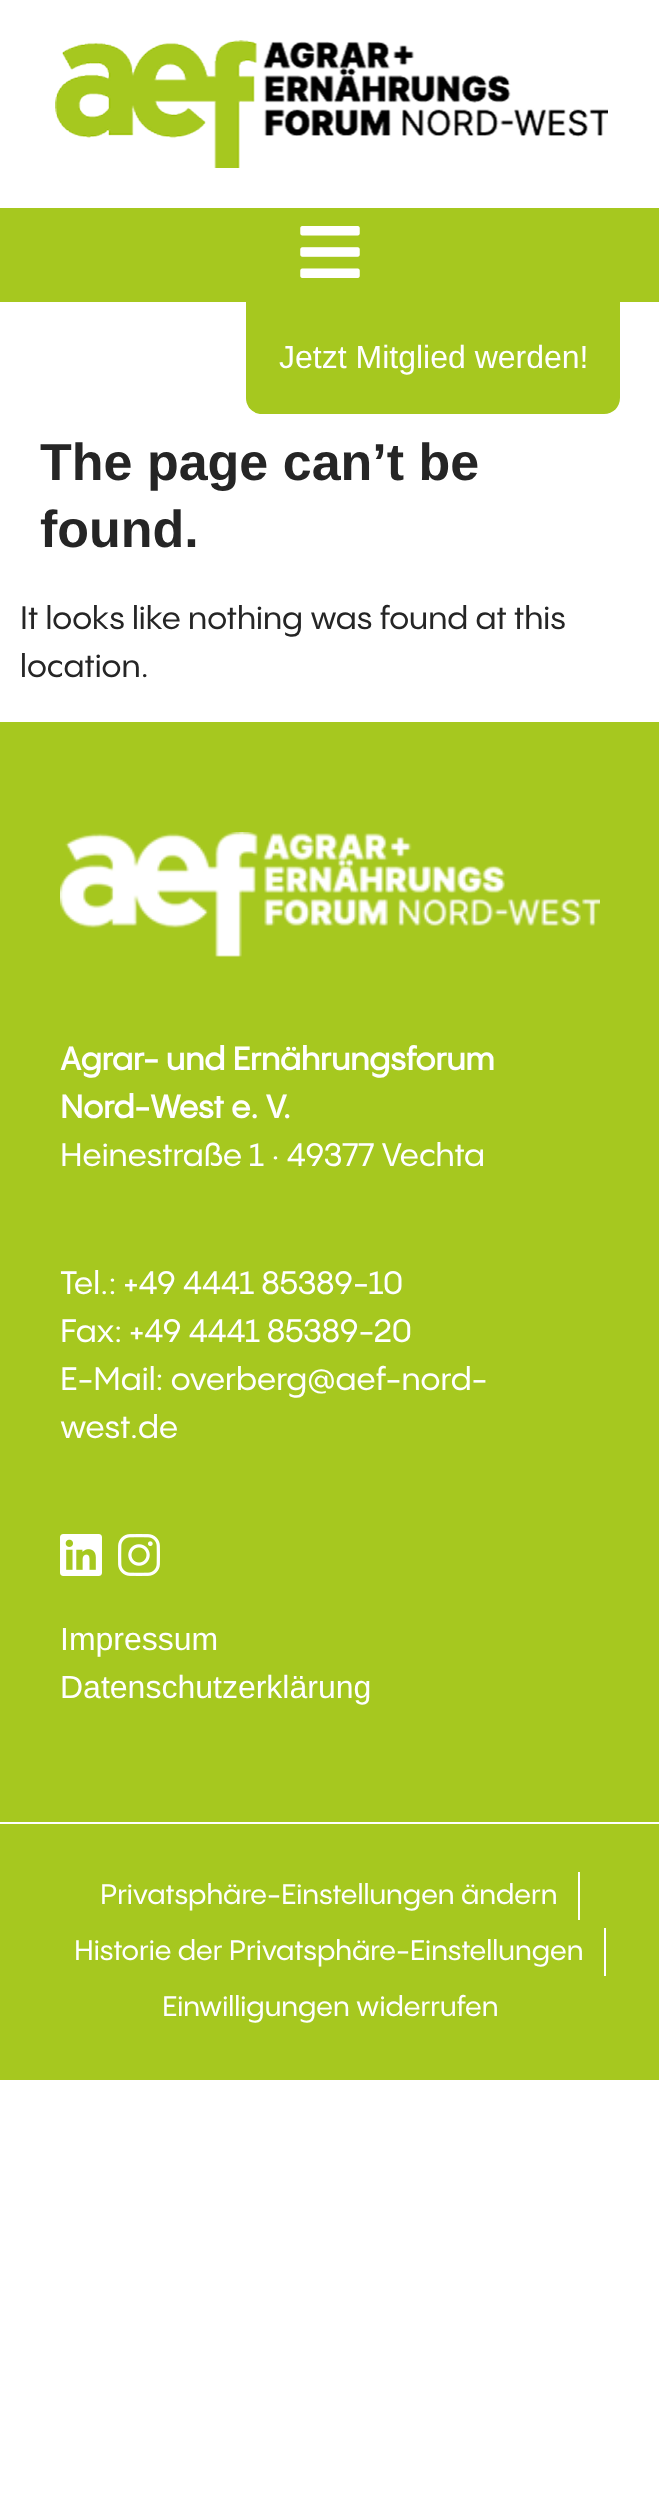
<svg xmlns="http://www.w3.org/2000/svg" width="659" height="2517">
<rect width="100%" height="100%" fill="#fff"/>
<image x="55" y="40" width="553" height="128" href="media/1.png"/>
<rect y="208" width="659" height="94" fill="#a6c81f"/>
<image x="300" y="226" width="60" height="52" href="media/2.png"/>
<path d="M246 302h374v96c0 9-7 16-16 16h-342c-9 0-16-7-16-16z" fill="#a6c81f"/>
<text x="279" y="368" style="font-family:Liberation Sans;font-size:32px;fill:#fff">Jetzt Mitglied werden!</text>
<text x="40" y="480" style="font-family:Liberation Sans;font-size:52px;font-weight:bold;fill:#252525">The page can’t be</text>
<text x="40" y="547" style="font-family:Liberation Sans;font-size:52px;font-weight:bold;fill:#252525">found.</text>
<text x="20" y="629" style="font-family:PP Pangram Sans;font-size:32px;font-weight:500;fill:#252525">It looks like nothing was found at this</text>
<text x="20" y="677" style="font-family:PP Pangram Sans;font-size:32px;font-weight:500;fill:#252525">location.</text>
<rect y="722" width="659" height="1100" fill="#a6c81f"/>
<image x="60" y="832" width="540" height="125" href="media/3.png"/>
<text x="60" y="1070" style="font-family:PP Pangram Sans;font-size:32px;font-weight:bold;fill:#fff">Agrar- und Ernährungsforum</text>
<text x="60" y="1118" style="font-family:PP Pangram Sans;font-size:32px;font-weight:bold;fill:#fff">Nord-West e. V.</text>
<text x="60" y="1166" style="font-family:PP Pangram Sans;font-size:32px;font-weight:500;fill:#fff">Heinestraße 1 · 49377 Vechta</text>
<text x="60" y="1294" style="font-family:PP Pangram Sans;font-size:32px;font-weight:500;fill:#fff">Tel.: +49 4441 85389-10</text>
<text x="60" y="1342" style="font-family:PP Pangram Sans;font-size:32px;font-weight:500;fill:#fff">Fax: +49 4441 85389-20</text>
<text x="60" y="1390" style="font-family:PP Pangram Sans;font-size:32px;font-weight:500;fill:#fff">E-Mail: overberg@aef-nord-</text>
<text x="60" y="1438" style="font-family:PP Pangram Sans;font-size:32px;font-weight:500;fill:#fff">west.de</text>
<image x="60" y="1534" width="42" height="42" href="media/4.png"/>
<image x="118" y="1534" width="42" height="42" href="media/5.png"/>
<text x="60" y="1650" style="font-family:Liberation Sans;font-size:32px;fill:#fff">Impressum</text>
<text x="60" y="1698" style="font-family:Liberation Sans;font-size:32px;fill:#fff">Datenschutzerklärung</text>
<rect y="1824" width="659" height="256" fill="#a6c81f"/>
<text x="100" y="1904" style="font-family:PP Pangram Sans;font-size:28px;font-weight:500;fill:#fff">Privatsphäre-Einstellungen ändern</text>
<rect x="578" y="1872" width="2" height="48" fill="#fff"/>
<text x="74" y="1960" style="font-family:PP Pangram Sans;font-size:28px;font-weight:500;fill:#fff">Historie der Privatsphäre-Einstellungen</text>
<rect x="604" y="1928" width="2" height="48" fill="#fff"/>
<text x="162" y="2016" style="font-family:PP Pangram Sans;font-size:28px;font-weight:500;fill:#fff">Einwilligungen widerrufen</text>
</svg>
